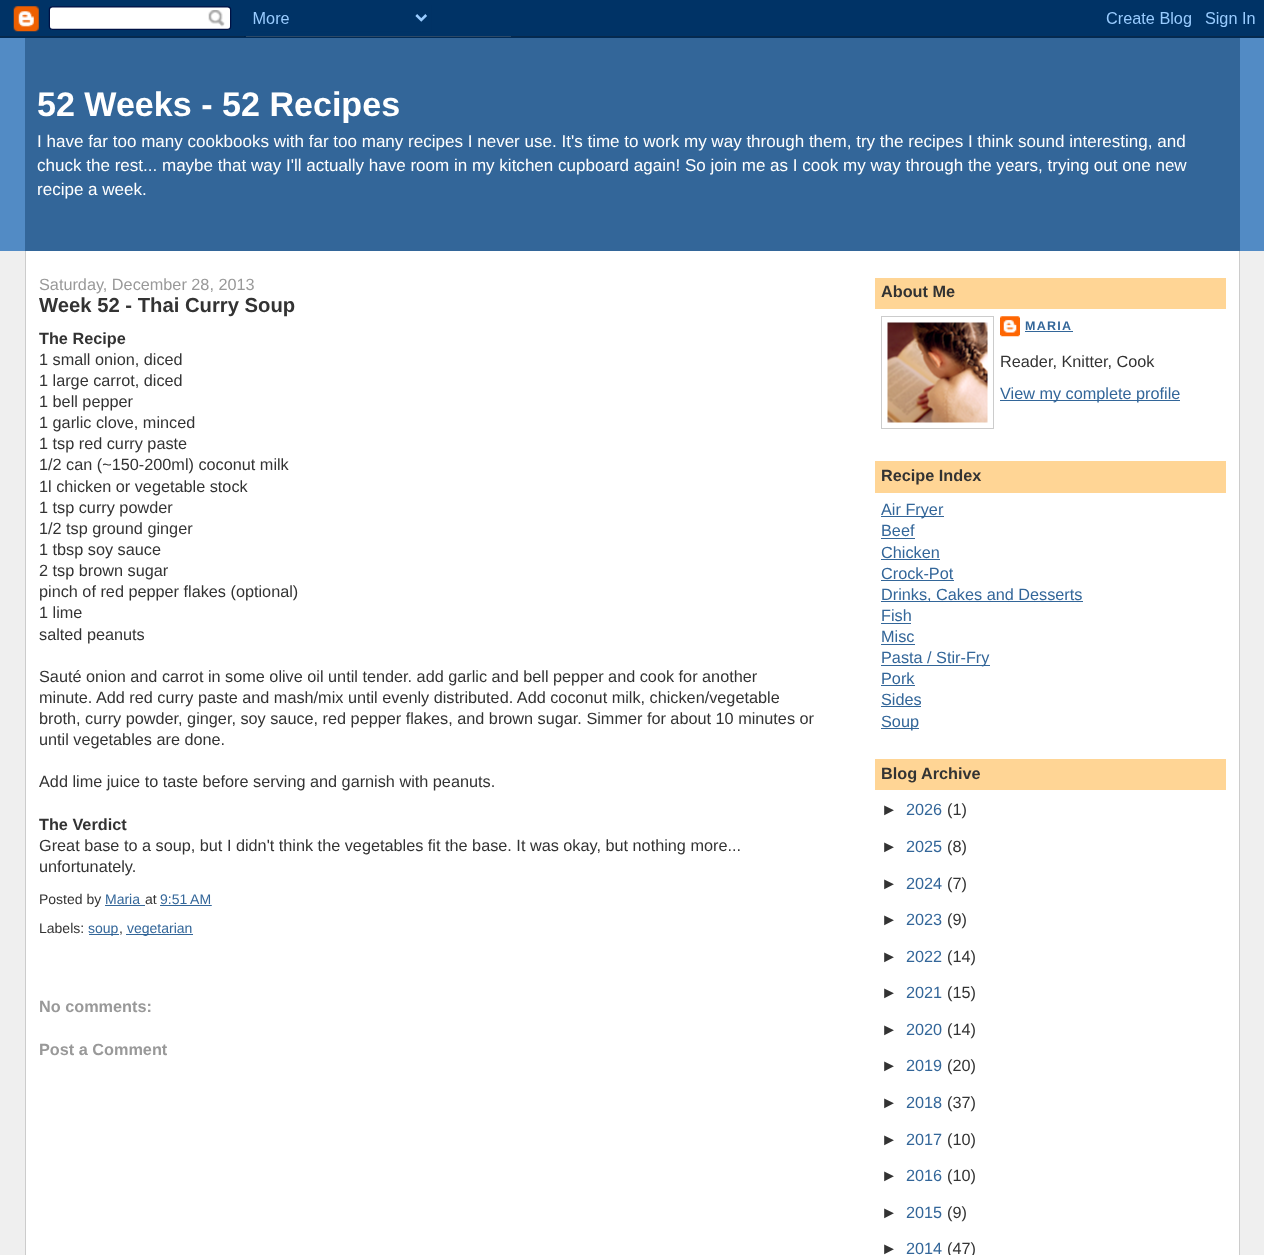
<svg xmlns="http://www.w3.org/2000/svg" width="1264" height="1255">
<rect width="100%" height="100%" fill="#efefef"/>
<image x="0" y="0" width="1264" height="38" href="media/1.png"/>
<rect y="38" width="1264" height="213" fill="#528bc5"/>
<rect x="25" y="38" width="1215" height="213" fill="#369"/>
<text x="37" y="116" style="font-family:Liberation Sans;font-size:34.1px;font-weight:bold;fill:#fff">52 Weeks - 52 Recipes</text>
<text x="37" y="147" style="font-family:Liberation Sans;font-size:17.05px;fill:#fff">I have far too many cookbooks with far too many recipes I never use. It's time to work my way through them, try the recipes I think sound interesting, and</text>
<text x="37" y="171" style="font-family:Liberation Sans;font-size:17.05px;fill:#fff">chuck the rest... maybe that way I'll actually have room in my kitchen cupboard again! So join me as I cook my way through the years, trying out one new</text>
<text x="37" y="195" style="font-family:Liberation Sans;font-size:17.05px;fill:#fff">recipe a week.</text>
<rect x="26" y="251" width="1213" height="1004" fill="#fff"/>
<rect x="1239" y="251" width="1" height="1004" fill="#ccc"/>
<rect x="25" y="251" width="1" height="1004" fill="#ccc"/>
<text x="39" y="290" style="font-family:Liberation Sans;font-size:16.25px;fill:#999">Saturday, December 28, 2013</text>
<text x="39" y="312" style="font-family:Liberation Sans;font-size:20.25px;font-weight:bold;fill:#333">Week 52 - Thai Curry Soup</text>
<text x="39" y="344" style="font-family:Liberation Sans;font-size:16.25px;font-weight:bold;fill:#333">The Recipe</text>
<text x="39" y="365" style="font-family:Liberation Sans;font-size:16.25px;fill:#333">1 small onion, diced</text>
<text x="39" y="386" style="font-family:Liberation Sans;font-size:16.25px;fill:#333">1 large carrot, diced</text>
<text x="39" y="407" style="font-family:Liberation Sans;font-size:16.25px;fill:#333">1 bell pepper</text>
<text x="39" y="428" style="font-family:Liberation Sans;font-size:16.25px;fill:#333">1 garlic clove, minced</text>
<text x="39" y="449" style="font-family:Liberation Sans;font-size:16.25px;fill:#333">1 tsp red curry paste</text>
<text x="39" y="470" style="font-family:Liberation Sans;font-size:16.25px;fill:#333">1/2 can (~150-200ml) coconut milk</text>
<text x="39" y="492" style="font-family:Liberation Sans;font-size:16.25px;fill:#333">1l chicken or vegetable stock</text>
<text x="39" y="513" style="font-family:Liberation Sans;font-size:16.25px;fill:#333">1 tsp curry powder</text>
<text x="39" y="534" style="font-family:Liberation Sans;font-size:16.25px;fill:#333">1/2 tsp ground ginger</text>
<text x="39" y="555" style="font-family:Liberation Sans;font-size:16.25px;fill:#333">1 tbsp soy sauce</text>
<text x="39" y="576" style="font-family:Liberation Sans;font-size:16.25px;fill:#333">2 tsp brown sugar</text>
<text x="39" y="597" style="font-family:Liberation Sans;font-size:16.25px;fill:#333">pinch of red pepper flakes (optional)</text>
<text x="39" y="618" style="font-family:Liberation Sans;font-size:16.25px;fill:#333">1 lime</text>
<text x="39" y="640" style="font-family:Liberation Sans;font-size:16.25px;fill:#333">salted peanuts</text>
<text x="39" y="682" style="font-family:Liberation Sans;font-size:16.25px;fill:#333">Sauté onion and carrot in some olive oil until tender. add garlic and bell pepper and cook for another</text>
<text x="39" y="703" style="font-family:Liberation Sans;font-size:16.25px;fill:#333">minute. Add red curry paste and mash/mix until evenly distributed. Add coconut milk, chicken/vegetable</text>
<text x="39" y="724" style="font-family:Liberation Sans;font-size:16.25px;fill:#333">broth, curry powder, ginger, soy sauce, red pepper flakes, and brown sugar. Simmer for about 10 minutes or</text>
<text x="39" y="745" style="font-family:Liberation Sans;font-size:16.25px;fill:#333">until vegetables are done.</text>
<text x="39" y="787" style="font-family:Liberation Sans;font-size:16.25px;fill:#333">Add lime juice to taste before serving and garnish with peanuts.</text>
<text x="39" y="830" style="font-family:Liberation Sans;font-size:16.25px;font-weight:bold;fill:#333">The Verdict</text>
<text x="39" y="851" style="font-family:Liberation Sans;font-size:16.25px;fill:#333">Great base to a soup, but I didn't think the vegetables fit the base. It was okay, but nothing more...</text>
<text x="39" y="872" style="font-family:Liberation Sans;font-size:16.25px;fill:#333">unfortunately.</text>
<text x="39" y="904" style="font-family:Liberation Sans;font-size:14px;fill:#333">Posted by</text>
<text x="105" y="904" style="font-family:Liberation Sans;font-size:14px;fill:#369">Maria</text>
<rect x="105" y="905" width="40" height="1" fill="#369"/>
<text x="145" y="904" style="font-family:Liberation Sans;font-size:14px;fill:#333">at</text>
<path d="M160.5 905.5h51.5" fill="none" stroke="#369" stroke-width="1.2" stroke-dasharray="1.25 1.25"/>
<text x="160" y="904" style="font-family:Liberation Sans;font-size:14px;fill:#369">9:51 AM</text>
<rect x="160" y="905" width="51" height="1" fill="#369"/>
<text x="39" y="933" style="font-family:Liberation Sans;font-size:14px;fill:#333">Labels:</text>
<rect x="89" y="934" width="30" height="1" fill="#369"/>
<text x="88" y="933" style="font-family:Liberation Sans;font-size:14px;fill:#369">soup</text>
<text x="119" y="933" style="font-family:Liberation Sans;font-size:14px;fill:#333">,</text>
<rect x="126" y="934" width="67" height="1" fill="#369"/>
<text x="127" y="933" style="font-family:Liberation Sans;font-size:14px;fill:#369">vegetarian</text>
<text x="39" y="1012" style="font-family:Liberation Sans;font-size:16.25px;font-weight:bold;fill:#999">No comments:</text>
<text x="39" y="1055" style="font-family:Liberation Sans;font-size:16.25px;font-weight:bold;fill:#999">Post a Comment</text>
<rect x="875" y="278" width="351" height="31" fill="#ffd595"/>
<text x="881" y="297" style="font-family:Liberation Sans;font-size:16.25px;font-weight:bold;fill:#333">About Me</text>
<rect x="881.5" y="316.5" width="112" height="112" fill="none" stroke="#ccc"/>
<image x="887" y="322" width="101" height="101" href="media/2.png"/>
<image x="1000" y="316" width="20" height="21" href="media/3.png"/>
<text x="1025" y="330" style="font-family:Liberation Sans;font-size:12.5px;font-weight:bold;letter-spacing:1.25px;fill:#369">MARIA</text>
<rect x="1025" y="331" width="48" height="1" fill="#369"/>
<text x="1000" y="367" style="font-family:Liberation Sans;font-size:16.25px;fill:#333">Reader, Knitter, Cook</text>
<rect x="1000" y="400" width="180" height="1" fill="#369"/>
<text x="1000" y="399" style="font-family:Liberation Sans;font-size:16.25px;fill:#369">View my complete profile</text>
<rect x="875" y="461" width="351" height="32" fill="#ffd595"/>
<text x="881" y="481" style="font-family:Liberation Sans;font-size:16.25px;font-weight:bold;fill:#333">Recipe Index</text>
<rect x="881" y="516" width="63" height="1" fill="#369"/>
<text x="881" y="515" style="font-family:Liberation Sans;font-size:16.25px;fill:#369">Air Fryer</text>
<text x="881" y="536" style="font-family:Liberation Sans;font-size:16.25px;fill:#369">Beef</text>
<rect x="881" y="538" width="34" height="1" fill="#369"/>
<text x="881" y="558" style="font-family:Liberation Sans;font-size:16.25px;fill:#369">Chicken</text>
<rect x="881" y="559" width="59" height="1" fill="#369"/>
<text x="881" y="579" style="font-family:Liberation Sans;font-size:16.25px;fill:#369">Crock-Pot</text>
<rect x="881" y="580" width="73" height="1" fill="#369"/>
<rect x="881" y="601" width="202" height="1" fill="#369"/>
<text x="881" y="600" style="font-family:Liberation Sans;font-size:16.25px;fill:#369">Drinks, Cakes and Desserts</text>
<text x="881" y="621" style="font-family:Liberation Sans;font-size:16.25px;fill:#369">Fish</text>
<rect x="881" y="623" width="30" height="1" fill="#369"/>
<text x="881" y="642" style="font-family:Liberation Sans;font-size:16.25px;fill:#369">Misc</text>
<rect x="881" y="644" width="34" height="1" fill="#369"/>
<rect x="881" y="665" width="109" height="1" fill="#369"/>
<text x="881" y="663" style="font-family:Liberation Sans;font-size:16.25px;fill:#369">Pasta / Stir-Fry</text>
<text x="881" y="684" style="font-family:Liberation Sans;font-size:16.25px;fill:#369">Pork</text>
<rect x="881" y="685" width="34" height="1" fill="#369"/>
<text x="881" y="705" style="font-family:Liberation Sans;font-size:16.25px;fill:#369">Sides</text>
<rect x="881" y="706" width="40" height="1" fill="#369"/>
<rect x="881" y="728" width="38" height="1" fill="#369"/>
<text x="881" y="727" style="font-family:Liberation Sans;font-size:16.25px;fill:#369">Soup</text>
<rect x="875" y="759" width="351" height="31" fill="#ffd595"/>
<text x="881" y="779" style="font-family:Liberation Sans;font-size:16.25px;font-weight:bold;fill:#333">Blog Archive</text>
<text x="881" y="815" style="font-family:Liberation Sans;font-size:16.25px;fill:#333">►</text>
<text x="906" y="815" style="font-family:Liberation Sans;font-size:16.25px;fill:#369">2026</text>
<text x="947" y="815" style="font-family:Liberation Sans;font-size:16.25px;fill:#333">(1)</text>
<text x="881" y="852" style="font-family:Liberation Sans;font-size:16.25px;fill:#333">►</text>
<text x="906" y="852" style="font-family:Liberation Sans;font-size:16.25px;fill:#369">2025</text>
<text x="947" y="852" style="font-family:Liberation Sans;font-size:16.25px;fill:#333">(8)</text>
<text x="881" y="889" style="font-family:Liberation Sans;font-size:16.25px;fill:#333">►</text>
<text x="906" y="889" style="font-family:Liberation Sans;font-size:16.25px;fill:#369">2024</text>
<text x="947" y="889" style="font-family:Liberation Sans;font-size:16.25px;fill:#333">(7)</text>
<text x="881" y="925" style="font-family:Liberation Sans;font-size:16.25px;fill:#333">►</text>
<text x="906" y="925" style="font-family:Liberation Sans;font-size:16.25px;fill:#369">2023</text>
<text x="947" y="925" style="font-family:Liberation Sans;font-size:16.25px;fill:#333">(9)</text>
<text x="881" y="962" style="font-family:Liberation Sans;font-size:16.25px;fill:#333">►</text>
<text x="906" y="962" style="font-family:Liberation Sans;font-size:16.25px;fill:#369">2022</text>
<text x="947" y="962" style="font-family:Liberation Sans;font-size:16.25px;fill:#333">(14)</text>
<text x="881" y="998" style="font-family:Liberation Sans;font-size:16.25px;fill:#333">►</text>
<text x="906" y="998" style="font-family:Liberation Sans;font-size:16.25px;fill:#369">2021</text>
<text x="947" y="998" style="font-family:Liberation Sans;font-size:16.25px;fill:#333">(15)</text>
<text x="881" y="1035" style="font-family:Liberation Sans;font-size:16.25px;fill:#333">►</text>
<text x="906" y="1035" style="font-family:Liberation Sans;font-size:16.25px;fill:#369">2020</text>
<text x="947" y="1035" style="font-family:Liberation Sans;font-size:16.25px;fill:#333">(14)</text>
<text x="881" y="1071" style="font-family:Liberation Sans;font-size:16.25px;fill:#333">►</text>
<text x="906" y="1071" style="font-family:Liberation Sans;font-size:16.25px;fill:#369">2019</text>
<text x="947" y="1071" style="font-family:Liberation Sans;font-size:16.25px;fill:#333">(20)</text>
<text x="881" y="1108" style="font-family:Liberation Sans;font-size:16.25px;fill:#333">►</text>
<text x="906" y="1108" style="font-family:Liberation Sans;font-size:16.25px;fill:#369">2018</text>
<text x="947" y="1108" style="font-family:Liberation Sans;font-size:16.25px;fill:#333">(37)</text>
<text x="881" y="1145" style="font-family:Liberation Sans;font-size:16.25px;fill:#333">►</text>
<text x="906" y="1145" style="font-family:Liberation Sans;font-size:16.25px;fill:#369">2017</text>
<text x="947" y="1145" style="font-family:Liberation Sans;font-size:16.25px;fill:#333">(10)</text>
<text x="881" y="1181" style="font-family:Liberation Sans;font-size:16.25px;fill:#333">►</text>
<text x="906" y="1181" style="font-family:Liberation Sans;font-size:16.25px;fill:#369">2016</text>
<text x="947" y="1181" style="font-family:Liberation Sans;font-size:16.25px;fill:#333">(10)</text>
<text x="881" y="1218" style="font-family:Liberation Sans;font-size:16.25px;fill:#333">►</text>
<text x="906" y="1218" style="font-family:Liberation Sans;font-size:16.25px;fill:#369">2015</text>
<text x="947" y="1218" style="font-family:Liberation Sans;font-size:16.25px;fill:#333">(9)</text>
<text x="881" y="1254" style="font-family:Liberation Sans;font-size:16.25px;fill:#333">►</text>
<text x="906" y="1254" style="font-family:Liberation Sans;font-size:16.25px;fill:#369">2014</text>
<text x="947" y="1254" style="font-family:Liberation Sans;font-size:16.25px;fill:#333">(47)</text>
</svg>
